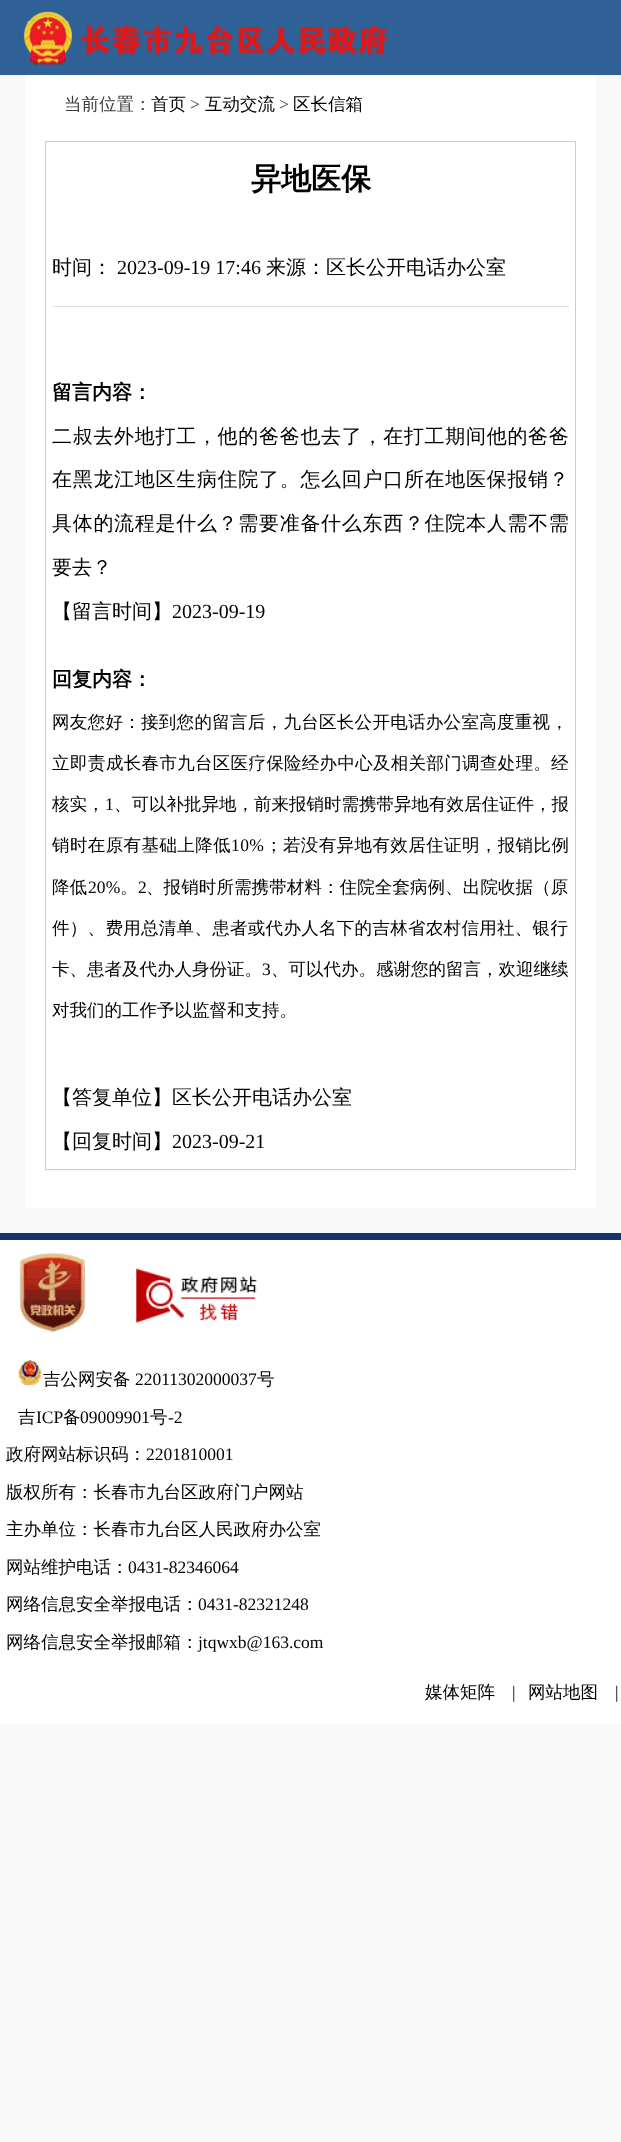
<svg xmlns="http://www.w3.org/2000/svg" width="621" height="2142">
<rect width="100%" height="100%" fill="#f8f8f8"/>
<rect width="621" height="75" fill="#2f6197"/>
<image x="23" y="11" width="364" height="54" href="media/1.png"/>
<rect x="25" y="75" width="571" height="1133" fill="#fff"/>
<text x="64" y="110" style="font-family:WenQuanYi Zen Hei;font-size:17.5px;font-weight:500;fill:#3a3a3a">当前位置：</text>
<text x="151" y="110" style="font-family:WenQuanYi Zen Hei;font-size:17.5px;font-weight:500;fill:#000">首页</text>
<text x="190" y="110" style="font-family:Liberation Serif;font-size:17.5px;fill:#3a3a3a">&gt;</text>
<text x="205" y="110" style="font-family:WenQuanYi Zen Hei;font-size:17.5px;font-weight:500;fill:#000">互动交流</text>
<text x="279" y="110" style="font-family:Liberation Serif;font-size:17.5px;fill:#3a3a3a">&gt;</text>
<text x="293" y="110" style="font-family:WenQuanYi Zen Hei;font-size:17.5px;font-weight:500;fill:#000">区长信箱</text>
<rect x="45.5" y="141.5" width="530" height="1028" fill="none" stroke="#ccc"/>
<text x="251" y="189" style="font-family:WenQuanYi Zen Hei;font-size:30px;font-weight:bold;fill:#000">异地医保</text>
<rect x="53" y="306" width="516" height="1" fill="#dcdcdc"/>
<text x="52" y="274" style="font-family:WenQuanYi Zen Hei;font-size:20px;font-weight:500;fill:#000">时间：</text>
<text x="117" y="274" style="font-family:Liberation Serif;font-size:20px;fill:#000">2023-09-19 17:46</text>
<text x="266" y="274" style="font-family:WenQuanYi Zen Hei;font-size:20px;font-weight:500;fill:#000">来源：区长公开电话办公室</text>
<text x="52" y="399" style="font-family:WenQuanYi Zen Hei;font-size:20px;font-weight:bold;fill:#000">留言内容：</text>
<text x="52" y="443" style="font-family:WenQuanYi Zen Hei;font-size:20px;font-weight:500;letter-spacing:0.7px;fill:#000">二叔去外地打工，他的爸爸也去了，在打工期间他的爸爸</text>
<text x="52" y="486" style="font-family:WenQuanYi Zen Hei;font-size:20px;font-weight:500;letter-spacing:0.7px;fill:#000">在黑龙江地区生病住院了。怎么回户口所在地医保报销？</text>
<text x="52" y="530" style="font-family:WenQuanYi Zen Hei;font-size:20px;font-weight:500;letter-spacing:0.7px;fill:#000">具体的流程是什么？需要准备什么东西？住院本人需不需</text>
<text x="52" y="574" style="font-family:WenQuanYi Zen Hei;font-size:20px;font-weight:500;fill:#000">要去？</text>
<text x="52" y="618" style="font-family:WenQuanYi Zen Hei;font-size:20px;font-weight:500;fill:#000">【留言时间】</text>
<text x="172" y="618" style="font-family:Liberation Serif;font-size:20px;fill:#000">2023-09-19</text>
<text x="52" y="686" style="font-family:WenQuanYi Zen Hei;font-size:20px;font-weight:bold;fill:#000">回复内容：</text>
<text x="52" y="728" style="font-family:WenQuanYi Zen Hei;font-size:17.5px;font-weight:500;letter-spacing:0.3px;fill:#000">网友您好：接到您的留言后，九台区长公开电话办公室高度重视，</text>
<text x="52" y="769" style="font-family:WenQuanYi Zen Hei;font-size:17.5px;font-weight:500;letter-spacing:0.5px;fill:#000">立即责</text>
<text x="106" y="769" style="font-family:WenQuanYi Zen Hei;font-size:17.5px;font-weight:500;letter-spacing:0.3px;fill:#000">成长春市九台区医疗保险经办中心及相关部门</text>
<text x="462" y="769" style="font-family:WenQuanYi Zen Hei;font-size:17.5px;font-weight:500;letter-spacing:0.4px;fill:#000">调查处理。</text>
<text x="551" y="769" style="font-family:WenQuanYi Zen Hei;font-size:17.5px;font-weight:500;fill:#000">经</text>
<text x="52" y="810" style="font-family:WenQuanYi Zen Hei;font-size:17.5px;font-weight:500;fill:#000">核实，</text>
<text x="105" y="810" style="font-family:Liberation Serif;font-size:17.5px;fill:#000">1</text>
<text x="114" y="810" style="font-family:WenQuanYi Zen Hei;font-size:17.5px;font-weight:500;fill:#000">、可以补批异地，前来报销时需携带异地有效居住证件，报</text>
<text x="52" y="851" style="font-family:WenQuanYi Zen Hei;font-size:17.5px;font-weight:500;letter-spacing:0.4px;fill:#000">销时在原有基础上降低</text>
<text x="231" y="851" style="font-family:Liberation Serif;font-size:17.5px;letter-spacing:0.4px;fill:#000">10%</text>
<text x="265" y="851" style="font-family:WenQuanYi Zen Hei;font-size:17.5px;font-weight:500;letter-spacing:0.4px;fill:#000">；若没有异地有效居住证明，报销比例</text>
<text x="52" y="893" style="font-family:WenQuanYi Zen Hei;font-size:17.5px;font-weight:500;letter-spacing:0.1px;fill:#000">降低</text>
<text x="88" y="893" style="font-family:Liberation Serif;font-size:17.5px;letter-spacing:0.1px;fill:#000">20%</text>
<text x="120" y="893" style="font-family:WenQuanYi Zen Hei;font-size:17.5px;font-weight:500;letter-spacing:0.1px;fill:#000">。</text>
<text x="138" y="893" style="font-family:Liberation Serif;font-size:17.5px;letter-spacing:0.1px;fill:#000">2</text>
<text x="146" y="893" style="font-family:WenQuanYi Zen Hei;font-size:17.5px;font-weight:500;letter-spacing:0.1px;fill:#000">、报销时所需携带材料：住院全套病例、出院收据（原</text>
<text x="52" y="934" style="font-family:WenQuanYi Zen Hei;font-size:17.5px;font-weight:500;letter-spacing:0.3px;fill:#000">件）、费用总清单、患者或代办人名下的吉林省农村信用社、银行</text>
<text x="52" y="975" style="font-family:WenQuanYi Zen Hei;font-size:17.5px;font-weight:500;fill:#000">卡、患者及代办人身份证。</text>
<text x="262" y="975" style="font-family:Liberation Serif;font-size:17.5px;fill:#000">3</text>
<text x="271" y="975" style="font-family:WenQuanYi Zen Hei;font-size:17.5px;font-weight:500;fill:#000">、可以代办。感谢您的留言，欢迎继续</text>
<text x="52" y="1016" style="font-family:WenQuanYi Zen Hei;font-size:17.5px;font-weight:500;fill:#000">对我们的工作予以监督和支持。</text>
<text x="52" y="1104" style="font-family:WenQuanYi Zen Hei;font-size:20px;font-weight:500;fill:#000">【答复单位】区长公开电话办公室</text>
<text x="52" y="1148" style="font-family:WenQuanYi Zen Hei;font-size:20px;font-weight:500;fill:#000">【回复时间】</text>
<text x="172" y="1148" style="font-family:Liberation Serif;font-size:20px;fill:#000">2023-09-21</text>
<rect y="1233" width="621" height="7" fill="#13336e"/>
<rect y="1240" width="621" height="484" fill="#fff"/>
<image x="19" y="1252" width="67" height="81" href="media/2.png"/>
<image x="136" y="1268" width="121" height="55" href="media/3.png"/>
<image x="18" y="1360" width="24" height="25" href="media/4.png"/>
<text x="43" y="1385" style="font-family:WenQuanYi Zen Hei;font-size:17.5px;font-weight:500;fill:#000">吉公网安备</text>
<text x="135" y="1385" style="font-family:Liberation Serif;font-size:17.5px;fill:#000">22011302000037</text>
<text x="257" y="1385" style="font-family:WenQuanYi Zen Hei;font-size:17.5px;font-weight:500;fill:#000">号</text>
<text x="18" y="1423" style="font-family:WenQuanYi Zen Hei;font-size:17.5px;font-weight:500;fill:#000">吉</text>
<text x="36" y="1423" style="font-family:Liberation Serif;font-size:17.5px;fill:#000">ICP</text>
<text x="63" y="1423" style="font-family:WenQuanYi Zen Hei;font-size:17.5px;font-weight:500;fill:#000">备</text>
<text x="80" y="1423" style="font-family:Liberation Serif;font-size:17.5px;fill:#000">09009901</text>
<text x="150" y="1423" style="font-family:WenQuanYi Zen Hei;font-size:17.5px;font-weight:500;fill:#000">号</text>
<text x="168" y="1423" style="font-family:Liberation Serif;font-size:17.5px;fill:#000">-2</text>
<text x="6" y="1460" style="font-family:WenQuanYi Zen Hei;font-size:17.5px;font-weight:500;fill:#000">政府网站标识码：</text>
<text x="146" y="1460" style="font-family:Liberation Serif;font-size:17.5px;fill:#000">2201810001</text>
<text x="6" y="1498" style="font-family:WenQuanYi Zen Hei;font-size:17.5px;font-weight:500;fill:#000">版权所有：长春市九台区政府门户网站</text>
<text x="6" y="1535" style="font-family:WenQuanYi Zen Hei;font-size:17.5px;font-weight:500;fill:#000">主办单位：长春市九台区人民政府办公室</text>
<text x="6" y="1573" style="font-family:WenQuanYi Zen Hei;font-size:17.5px;font-weight:500;fill:#000">网站维护电话：</text>
<text x="128" y="1573" style="font-family:Liberation Serif;font-size:17.5px;fill:#000">0431-82346064</text>
<text x="6" y="1610" style="font-family:WenQuanYi Zen Hei;font-size:17.5px;font-weight:500;fill:#000">网络信息安全举报电话：</text>
<text x="198" y="1610" style="font-family:Liberation Serif;font-size:17.5px;fill:#000">0431-82321248</text>
<text x="6" y="1648" style="font-family:WenQuanYi Zen Hei;font-size:17.5px;font-weight:500;fill:#000">网络信息安全举报邮箱：</text>
<text x="198" y="1648" style="font-family:Liberation Serif;font-size:17.5px;fill:#000">jtqwxb@163.com</text>
<text x="425" y="1698" style="font-family:WenQuanYi Zen Hei;font-size:17.5px;font-weight:500;fill:#000">媒体矩阵</text>
<text x="512" y="1698" style="font-family:Liberation Serif;font-size:17.5px;fill:#000">|</text>
<text x="528" y="1698" style="font-family:WenQuanYi Zen Hei;font-size:17.5px;font-weight:500;fill:#000">网站地图</text>
<text x="615" y="1698" style="font-family:Liberation Serif;font-size:17.5px;fill:#000">|</text>
</svg>
